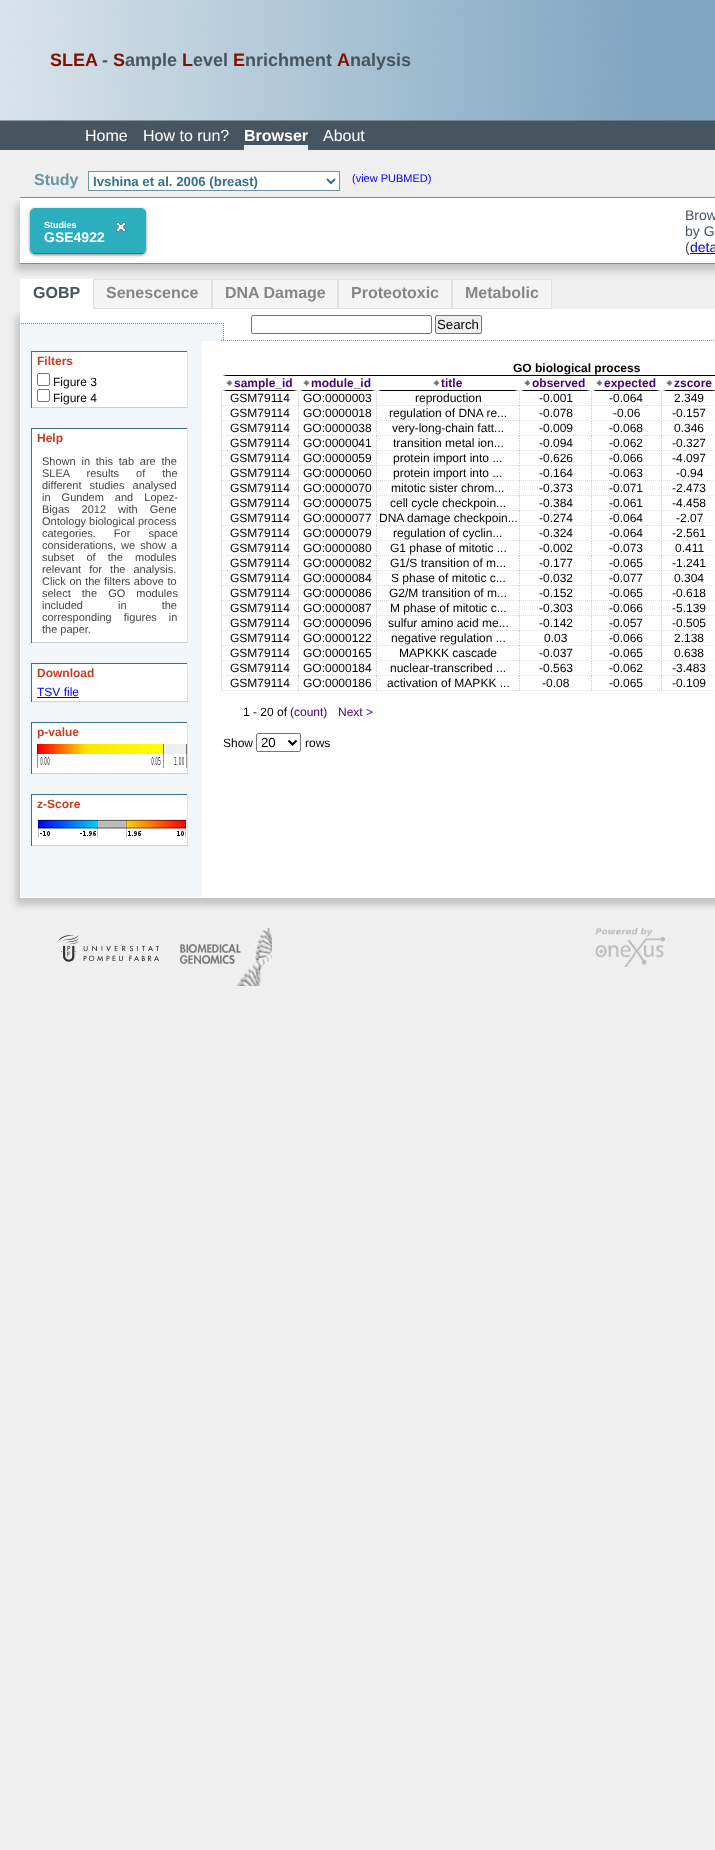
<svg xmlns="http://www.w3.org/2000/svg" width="715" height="1850">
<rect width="100%" height="100%" fill="#efefef"/>
<image x="0" y="0" width="715" height="150" href="media/1.png"/>
<text x="50" y="66" style="font-family:Liberation Sans;font-size:18px;font-weight:bold;fill:#7f1100">SLEA</text>
<text x="102" y="66" style="font-family:Liberation Sans;font-size:18px;font-weight:bold;fill:#475560">-</text>
<text x="113" y="66" style="font-family:Liberation Sans;font-size:18px;font-weight:bold;fill:#7f1100">S</text>
<text x="125" y="66" style="font-family:Liberation Sans;font-size:18px;font-weight:bold;fill:#475560">ample</text>
<text x="182" y="66" style="font-family:Liberation Sans;font-size:18px;font-weight:bold;fill:#7f1100">L</text>
<text x="193" y="66" style="font-family:Liberation Sans;font-size:18px;font-weight:bold;fill:#475560">evel</text>
<text x="233" y="66" style="font-family:Liberation Sans;font-size:18px;font-weight:bold;fill:#7f1100">E</text>
<text x="245" y="66" style="font-family:Liberation Sans;font-size:18px;font-weight:bold;fill:#475560">nrichment</text>
<text x="337" y="66" style="font-family:Liberation Sans;font-size:18px;font-weight:bold;fill:#7f1100">A</text>
<text x="350" y="66" style="font-family:Liberation Sans;font-size:18px;font-weight:bold;fill:#475560">nalysis</text>
<text x="85" y="141" style="font-family:Liberation Sans;font-size:16px;fill:#fff">Home</text>
<text x="143" y="141" style="font-family:Liberation Sans;font-size:16px;fill:#fff">How to run?</text>
<rect x="244" y="145" width="64" height="5" fill="#efefef"/>
<text x="244" y="141" style="font-family:Liberation Sans;font-size:16px;font-weight:bold;fill:#fff">Browser</text>
<text x="323" y="141" style="font-family:Liberation Sans;font-size:16px;fill:#fff">About</text>
<text x="34" y="185" style="font-family:Liberation Sans;font-size:16px;font-weight:bold;fill:#6b95a5">Study</text>
<rect x="88.5" y="171.5" width="251" height="19" fill="#fff" stroke="#6b95a5"/>
<path d="M327 179l4 4l4-4" fill="none" stroke="#387186" stroke-width="2"/>
<text x="93" y="186" style="font-family:Liberation Sans;font-size:13.25px;font-weight:bold;fill:#387186">Ivshina et al. 2006 (breast)</text>
<text x="352" y="182" style="font-family:Liberation Sans;font-size:11px;fill:#00e">(view PUBMED)</text>
<rect x="16" y="204" width="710" height="67" fill="#c3c3c3" filter="blur(3.5px)"/>
<rect x="20" y="198" width="695" height="65" fill="#fff"/>
<text x="685" y="220" style="font-family:Liberation Sans;font-size:14px;fill:#475560">Brow</text>
<text x="685" y="236" style="font-family:Liberation Sans;font-size:14px;fill:#475560">by G</text>
<text x="685" y="252" style="font-family:Liberation Sans;font-size:14px;fill:#475560">(</text>
<text x="690" y="252" style="font-family:Liberation Sans;font-size:14px;fill:#00e">deta</text>
<rect x="690" y="253" width="25" height="1" fill="#00e"/>
<rect x="20" y="197" width="695" height="1" fill="#6b95a5"/>
<rect x="20" y="263" width="695" height="1" fill="#6b95a5"/>
<rect x="30" y="209" width="116" height="46" rx="5" fill="#00000080" filter="blur(1.5px)"/>
<rect x="30" y="208" width="116" height="46" rx="5" fill="#2daebf"/>
<rect x="33" y="253" width="111" height="1" fill="#00000040"/>
<text x="44" y="228" style="font-family:Liberation Sans;font-size:9px;font-weight:bold;fill:#fff">Studies</text>
<text x="44" y="242" style="font-family:Liberation Sans;font-size:14px;font-weight:bold;fill:#fff">GSE4922</text>
<image x="116" y="222" width="10" height="10" href="media/2.png"/>
<rect x="20" y="279" width="73" height="30" fill="#fff"/>
<text x="33" y="298" style="font-family:Liberation Sans;font-size:16px;font-weight:bold;fill:#475560">GOBP</text>
<rect x="93.5" y="279.5" width="118" height="29" fill="#f4f4f4" stroke="#e4e0e1"/>
<text x="106" y="298" style="font-family:Liberation Sans;font-size:16px;font-weight:bold;fill:#868686">Senescence</text>
<rect x="212.5" y="279.5" width="125" height="29" fill="#f4f4f4" stroke="#e4e0e1"/>
<text x="225" y="298" style="font-family:Liberation Sans;font-size:16px;font-weight:bold;fill:#868686">DNA Damage</text>
<rect x="338.5" y="279.5" width="113" height="29" fill="#f4f4f4" stroke="#e4e0e1"/>
<text x="351" y="298" style="font-family:Liberation Sans;font-size:16px;font-weight:bold;fill:#868686">Proteotoxic</text>
<rect x="452.5" y="279.5" width="99" height="29" fill="#f4f4f4" stroke="#e4e0e1"/>
<text x="465" y="298" style="font-family:Liberation Sans;font-size:16px;font-weight:bold;fill:#868686">Metabolic</text>
<rect x="16" y="316" width="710" height="589" fill="#c3c3c3" filter="blur(3.5px)"/>
<rect x="20" y="309" width="695" height="589" fill="#fff"/>
<rect x="21" y="323" width="203" height="18" fill="#f2f6f8"/>
<path d="M21 323.5h203" fill="none" stroke="#8b8b8b" stroke-dasharray="1 1"/>
<path d="M223.5 323v18" fill="none" stroke="#8b8b8b" stroke-dasharray="1 1"/>
<rect x="21" y="341" width="181" height="556" fill="#f2f6f8"/>
<rect x="32" y="352" width="155" height="55" fill="#fff"/>
<rect x="31" y="351" width="157" height="1" fill="#387186"/>
<rect x="187" y="351" width="1" height="57" fill="#e0e0e0"/>
<rect x="31" y="407" width="157" height="1" fill="#d0d0d0"/>
<rect x="31" y="351" width="1" height="57" fill="#387186"/>
<text x="37" y="365" style="font-family:Liberation Sans;font-size:12px;font-weight:bold;fill:#c53f26">Filters</text>
<rect x="37.5" y="373.5" width="12" height="12" rx="1.5" fill="none" stroke="#767676"/>
<text x="53" y="386" style="font-family:Liberation Sans;font-size:12px;fill:#000">Figure 3</text>
<rect x="37.5" y="389.5" width="12" height="12" rx="1.5" fill="none" stroke="#767676"/>
<text x="53" y="402" style="font-family:Liberation Sans;font-size:12px;fill:#000">Figure 4</text>
<rect x="32" y="429" width="155" height="213" fill="#fff"/>
<rect x="31" y="428" width="157" height="1" fill="#387186"/>
<rect x="187" y="428" width="1" height="215" fill="#e0e0e0"/>
<rect x="31" y="642" width="157" height="1" fill="#d0d0d0"/>
<rect x="31" y="428" width="1" height="215" fill="#387186"/>
<text x="37" y="442" style="font-family:Liberation Sans;font-size:12px;font-weight:bold;fill:#c53f26">Help</text>
<text x="42" y="465" word-spacing="2.75" style="font-family:Liberation Sans;font-size:11px;fill:#444">Shown in this tab are the</text>
<text x="42" y="477" word-spacing="14" style="font-family:Liberation Sans;font-size:11px;fill:#444">SLEA results of the</text>
<text x="42" y="489" word-spacing="5" style="font-family:Liberation Sans;font-size:11px;fill:#444">different studies analysed</text>
<text x="42" y="501" word-spacing="8" style="font-family:Liberation Sans;font-size:11px;fill:#444">in Gundem and Lopez-</text>
<text x="42" y="513" word-spacing="9" style="font-family:Liberation Sans;font-size:11px;fill:#444">Bigas 2012 with Gene</text>
<text x="42" y="525" style="font-family:Liberation Sans;font-size:11px;fill:#444">Ontology biological process</text>
<text x="42" y="537" word-spacing="15" style="font-family:Liberation Sans;font-size:11px;fill:#444">categories. For space</text>
<text x="42" y="549" word-spacing="2" style="font-family:Liberation Sans;font-size:11px;fill:#444">considerations, we show a</text>
<text x="42" y="561" word-spacing="9" style="font-family:Liberation Sans;font-size:11px;fill:#444">subset of the modules</text>
<text x="42" y="573" word-spacing="5" style="font-family:Liberation Sans;font-size:11px;fill:#444">relevant for the analysis.</text>
<text x="42" y="585" word-spacing="0.5" style="font-family:Liberation Sans;font-size:11px;fill:#444">Click on the filters above to</text>
<text x="42" y="597" word-spacing="8" style="font-family:Liberation Sans;font-size:11px;fill:#444">select the GO modules</text>
<text x="42" y="609" word-spacing="32" style="font-family:Liberation Sans;font-size:11px;fill:#444">included in the</text>
<text x="42" y="621" word-spacing="9" style="font-family:Liberation Sans;font-size:11px;fill:#444">corresponding figures in</text>
<text x="42" y="633" style="font-family:Liberation Sans;font-size:11px;fill:#444">the paper.</text>
<rect x="32" y="664" width="155" height="37" fill="#fff"/>
<rect x="31" y="663" width="157" height="1" fill="#387186"/>
<rect x="187" y="663" width="1" height="39" fill="#e0e0e0"/>
<rect x="31" y="701" width="157" height="1" fill="#d0d0d0"/>
<rect x="31" y="663" width="1" height="39" fill="#387186"/>
<text x="37" y="677" style="font-family:Liberation Sans;font-size:12px;font-weight:bold;fill:#c53f26">Download</text>
<text x="37" y="696" style="font-family:Liberation Sans;font-size:12px;fill:#00e">TSV file</text>
<rect x="37" y="697" width="42" height="1" fill="#00e"/>
<rect x="32" y="723" width="155" height="50" fill="#fff"/>
<rect x="31" y="722" width="157" height="1" fill="#387186"/>
<rect x="187" y="722" width="1" height="52" fill="#e0e0e0"/>
<rect x="31" y="773" width="157" height="1" fill="#d0d0d0"/>
<rect x="31" y="722" width="1" height="52" fill="#387186"/>
<text x="37" y="736" style="font-family:Liberation Sans;font-size:12px;font-weight:bold;fill:#c53f26">p-value</text>
<image x="37" y="744" width="150" height="24" href="media/3.png"/>
<rect x="32" y="795" width="155" height="50" fill="#fff"/>
<rect x="31" y="794" width="157" height="1" fill="#387186"/>
<rect x="187" y="794" width="1" height="52" fill="#e0e0e0"/>
<rect x="31" y="845" width="157" height="1" fill="#d0d0d0"/>
<rect x="31" y="794" width="1" height="52" fill="#387186"/>
<text x="37" y="808" style="font-family:Liberation Sans;font-size:12px;font-weight:bold;fill:#c53f26">z-Score</text>
<image x="38" y="819" width="148" height="19" href="media/4.png"/>
<path d="M221 340.5h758" fill="none" stroke="#8b8b8b" stroke-dasharray="1 1"/>
<rect x="251.5" y="315.5" width="180" height="18" rx="1.5" fill="none" stroke="#767676"/>
<rect x="435.5" y="315.5" width="46" height="18" rx="1.5" fill="#efefef" stroke="#767676"/>
<text x="437" y="329" style="font-family:Liberation Sans;font-size:13.25px;fill:#000">Search</text>
<path d="M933 376h-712l5-1h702z" fill="#000"/>
<path d="M221 376v-15h5v14z" fill="#fff"/>
<text x="513" y="372" style="font-family:Liberation Sans;font-size:12px;font-weight:bold;fill:#000">GO biological process</text>
<path d="M298 391h-77l5-1h67z" fill="#000"/>
<path d="M221 391v-15h5v14z" fill="#fff"/>
<image x="226" y="380" width="7" height="6" href="media/5.png"/>
<text x="234" y="387" style="font-family:Liberation Sans;font-size:12px;font-weight:bold;fill:#400576">sample_id</text>
<path d="M376 391h-78l5-1h68z" fill="#000"/>
<path d="M298 391v-15h5v14z" fill="#fff"/>
<image x="303" y="380" width="7" height="6" href="media/5.png"/>
<text x="311" y="387" style="font-family:Liberation Sans;font-size:12px;font-weight:bold;fill:#400576">module_id</text>
<path d="M519 391h-143l5-1h133z" fill="#000"/>
<path d="M376 391v-15h5v14z" fill="#fff"/>
<image x="433" y="380" width="7" height="6" href="media/5.png"/>
<text x="441" y="387" style="font-family:Liberation Sans;font-size:12px;font-weight:bold;fill:#400576">title</text>
<path d="M591 391h-72l5-1h62z" fill="#000"/>
<path d="M519 391v-15h5v14z" fill="#fff"/>
<image x="524" y="380" width="7" height="6" href="media/5.png"/>
<text x="532" y="387" style="font-family:Liberation Sans;font-size:12px;font-weight:bold;fill:#400576">observed</text>
<path d="M661 391h-70l5-1h60z" fill="#000"/>
<path d="M591 391v-15h5v14z" fill="#fff"/>
<image x="596" y="380" width="7" height="6" href="media/5.png"/>
<text x="604" y="387" style="font-family:Liberation Sans;font-size:12px;font-weight:bold;fill:#400576">expected</text>
<path d="M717 391h-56l5-1h46z" fill="#000"/>
<path d="M661 391v-15h5v14z" fill="#fff"/>
<image x="666" y="380" width="7" height="6" href="media/5.png"/>
<text x="674" y="387" style="font-family:Liberation Sans;font-size:12px;font-weight:bold;fill:#400576">zscore</text>
<path d="M221 405.5h77" fill="none" stroke="#ddd" stroke-dasharray="1 1"/>
<path d="M221.5 391v15" fill="none" stroke="#ccc" stroke-dasharray="1 1"/>
<text x="230" y="402" style="font-family:Liberation Sans;font-size:12px;fill:#000">GSM79114</text>
<path d="M298 405.5h78" fill="none" stroke="#ddd" stroke-dasharray="1 1"/>
<path d="M298.5 391v15" fill="none" stroke="#ccc" stroke-dasharray="1 1"/>
<text x="303" y="402" style="font-family:Liberation Sans;font-size:12px;fill:#000">GO:0000003</text>
<path d="M376 405.5h143" fill="none" stroke="#ddd" stroke-dasharray="1 1"/>
<path d="M376.5 391v15" fill="none" stroke="#ccc" stroke-dasharray="1 1"/>
<text x="415" y="402" style="font-family:Liberation Sans;font-size:12px;fill:#000">reproduction</text>
<path d="M519 405.5h72" fill="none" stroke="#ddd" stroke-dasharray="1 1"/>
<path d="M519.5 391v15" fill="none" stroke="#ccc" stroke-dasharray="1 1"/>
<text x="539" y="402" style="font-family:Liberation Sans;font-size:12px;fill:#000">-0.001</text>
<path d="M591 405.5h70" fill="none" stroke="#ddd" stroke-dasharray="1 1"/>
<path d="M591.5 391v15" fill="none" stroke="#ccc" stroke-dasharray="1 1"/>
<text x="609" y="402" style="font-family:Liberation Sans;font-size:12px;fill:#000">-0.064</text>
<path d="M661 405.5h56" fill="none" stroke="#ddd" stroke-dasharray="1 1"/>
<path d="M661.5 391v15" fill="none" stroke="#ccc" stroke-dasharray="1 1"/>
<text x="674" y="402" style="font-family:Liberation Sans;font-size:12px;fill:#000">2.349</text>
<path d="M221 420.5h77" fill="none" stroke="#ddd" stroke-dasharray="1 1"/>
<path d="M221.5 406v15" fill="none" stroke="#ccc" stroke-dasharray="1 1"/>
<text x="230" y="417" style="font-family:Liberation Sans;font-size:12px;fill:#000">GSM79114</text>
<path d="M298 420.5h78" fill="none" stroke="#ddd" stroke-dasharray="1 1"/>
<path d="M298.5 406v15" fill="none" stroke="#ccc" stroke-dasharray="1 1"/>
<text x="303" y="417" style="font-family:Liberation Sans;font-size:12px;fill:#000">GO:0000018</text>
<path d="M376 420.5h143" fill="none" stroke="#ddd" stroke-dasharray="1 1"/>
<path d="M376.5 406v15" fill="none" stroke="#ccc" stroke-dasharray="1 1"/>
<text x="389" y="417" style="font-family:Liberation Sans;font-size:12px;fill:#000">regulation of DNA re...</text>
<path d="M519 420.5h72" fill="none" stroke="#ddd" stroke-dasharray="1 1"/>
<path d="M519.5 406v15" fill="none" stroke="#ccc" stroke-dasharray="1 1"/>
<text x="539" y="417" style="font-family:Liberation Sans;font-size:12px;fill:#000">-0.078</text>
<path d="M591 420.5h70" fill="none" stroke="#ddd" stroke-dasharray="1 1"/>
<path d="M591.5 406v15" fill="none" stroke="#ccc" stroke-dasharray="1 1"/>
<text x="613" y="417" style="font-family:Liberation Sans;font-size:12px;fill:#000">-0.06</text>
<path d="M661 420.5h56" fill="none" stroke="#ddd" stroke-dasharray="1 1"/>
<path d="M661.5 406v15" fill="none" stroke="#ccc" stroke-dasharray="1 1"/>
<text x="672" y="417" style="font-family:Liberation Sans;font-size:12px;fill:#000">-0.157</text>
<path d="M221 435.5h77" fill="none" stroke="#ddd" stroke-dasharray="1 1"/>
<path d="M221.5 421v15" fill="none" stroke="#ccc" stroke-dasharray="1 1"/>
<text x="230" y="432" style="font-family:Liberation Sans;font-size:12px;fill:#000">GSM79114</text>
<path d="M298 435.5h78" fill="none" stroke="#ddd" stroke-dasharray="1 1"/>
<path d="M298.5 421v15" fill="none" stroke="#ccc" stroke-dasharray="1 1"/>
<text x="303" y="432" style="font-family:Liberation Sans;font-size:12px;fill:#000">GO:0000038</text>
<path d="M376 435.5h143" fill="none" stroke="#ddd" stroke-dasharray="1 1"/>
<path d="M376.5 421v15" fill="none" stroke="#ccc" stroke-dasharray="1 1"/>
<text x="392" y="432" style="font-family:Liberation Sans;font-size:12px;fill:#000">very-long-chain fatt...</text>
<path d="M519 435.5h72" fill="none" stroke="#ddd" stroke-dasharray="1 1"/>
<path d="M519.5 421v15" fill="none" stroke="#ccc" stroke-dasharray="1 1"/>
<text x="539" y="432" style="font-family:Liberation Sans;font-size:12px;fill:#000">-0.009</text>
<path d="M591 435.5h70" fill="none" stroke="#ddd" stroke-dasharray="1 1"/>
<path d="M591.5 421v15" fill="none" stroke="#ccc" stroke-dasharray="1 1"/>
<text x="609" y="432" style="font-family:Liberation Sans;font-size:12px;fill:#000">-0.068</text>
<path d="M661 435.5h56" fill="none" stroke="#ddd" stroke-dasharray="1 1"/>
<path d="M661.5 421v15" fill="none" stroke="#ccc" stroke-dasharray="1 1"/>
<text x="674" y="432" style="font-family:Liberation Sans;font-size:12px;fill:#000">0.346</text>
<path d="M221 450.5h77" fill="none" stroke="#ddd" stroke-dasharray="1 1"/>
<path d="M221.5 436v15" fill="none" stroke="#ccc" stroke-dasharray="1 1"/>
<text x="230" y="447" style="font-family:Liberation Sans;font-size:12px;fill:#000">GSM79114</text>
<path d="M298 450.5h78" fill="none" stroke="#ddd" stroke-dasharray="1 1"/>
<path d="M298.5 436v15" fill="none" stroke="#ccc" stroke-dasharray="1 1"/>
<text x="303" y="447" style="font-family:Liberation Sans;font-size:12px;fill:#000">GO:0000041</text>
<path d="M376 450.5h143" fill="none" stroke="#ddd" stroke-dasharray="1 1"/>
<path d="M376.5 436v15" fill="none" stroke="#ccc" stroke-dasharray="1 1"/>
<text x="393" y="447" style="font-family:Liberation Sans;font-size:12px;fill:#000">transition metal ion...</text>
<path d="M519 450.5h72" fill="none" stroke="#ddd" stroke-dasharray="1 1"/>
<path d="M519.5 436v15" fill="none" stroke="#ccc" stroke-dasharray="1 1"/>
<text x="539" y="447" style="font-family:Liberation Sans;font-size:12px;fill:#000">-0.094</text>
<path d="M591 450.5h70" fill="none" stroke="#ddd" stroke-dasharray="1 1"/>
<path d="M591.5 436v15" fill="none" stroke="#ccc" stroke-dasharray="1 1"/>
<text x="609" y="447" style="font-family:Liberation Sans;font-size:12px;fill:#000">-0.062</text>
<path d="M661 450.5h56" fill="none" stroke="#ddd" stroke-dasharray="1 1"/>
<path d="M661.5 436v15" fill="none" stroke="#ccc" stroke-dasharray="1 1"/>
<text x="672" y="447" style="font-family:Liberation Sans;font-size:12px;fill:#000">-0.327</text>
<path d="M221 465.5h77" fill="none" stroke="#ddd" stroke-dasharray="1 1"/>
<path d="M221.5 451v15" fill="none" stroke="#ccc" stroke-dasharray="1 1"/>
<text x="230" y="462" style="font-family:Liberation Sans;font-size:12px;fill:#000">GSM79114</text>
<path d="M298 465.5h78" fill="none" stroke="#ddd" stroke-dasharray="1 1"/>
<path d="M298.5 451v15" fill="none" stroke="#ccc" stroke-dasharray="1 1"/>
<text x="303" y="462" style="font-family:Liberation Sans;font-size:12px;fill:#000">GO:0000059</text>
<path d="M376 465.5h143" fill="none" stroke="#ddd" stroke-dasharray="1 1"/>
<path d="M376.5 451v15" fill="none" stroke="#ccc" stroke-dasharray="1 1"/>
<text x="393" y="462" style="font-family:Liberation Sans;font-size:12px;fill:#000">protein import into ...</text>
<path d="M519 465.5h72" fill="none" stroke="#ddd" stroke-dasharray="1 1"/>
<path d="M519.5 451v15" fill="none" stroke="#ccc" stroke-dasharray="1 1"/>
<text x="539" y="462" style="font-family:Liberation Sans;font-size:12px;fill:#000">-0.626</text>
<path d="M591 465.5h70" fill="none" stroke="#ddd" stroke-dasharray="1 1"/>
<path d="M591.5 451v15" fill="none" stroke="#ccc" stroke-dasharray="1 1"/>
<text x="609" y="462" style="font-family:Liberation Sans;font-size:12px;fill:#000">-0.066</text>
<path d="M661 465.5h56" fill="none" stroke="#ddd" stroke-dasharray="1 1"/>
<path d="M661.5 451v15" fill="none" stroke="#ccc" stroke-dasharray="1 1"/>
<text x="672" y="462" style="font-family:Liberation Sans;font-size:12px;fill:#000">-4.097</text>
<path d="M221 480.5h77" fill="none" stroke="#ddd" stroke-dasharray="1 1"/>
<path d="M221.5 466v15" fill="none" stroke="#ccc" stroke-dasharray="1 1"/>
<text x="230" y="477" style="font-family:Liberation Sans;font-size:12px;fill:#000">GSM79114</text>
<path d="M298 480.5h78" fill="none" stroke="#ddd" stroke-dasharray="1 1"/>
<path d="M298.5 466v15" fill="none" stroke="#ccc" stroke-dasharray="1 1"/>
<text x="303" y="477" style="font-family:Liberation Sans;font-size:12px;fill:#000">GO:0000060</text>
<path d="M376 480.5h143" fill="none" stroke="#ddd" stroke-dasharray="1 1"/>
<path d="M376.5 466v15" fill="none" stroke="#ccc" stroke-dasharray="1 1"/>
<text x="393" y="477" style="font-family:Liberation Sans;font-size:12px;fill:#000">protein import into ...</text>
<path d="M519 480.5h72" fill="none" stroke="#ddd" stroke-dasharray="1 1"/>
<path d="M519.5 466v15" fill="none" stroke="#ccc" stroke-dasharray="1 1"/>
<text x="539" y="477" style="font-family:Liberation Sans;font-size:12px;fill:#000">-0.164</text>
<path d="M591 480.5h70" fill="none" stroke="#ddd" stroke-dasharray="1 1"/>
<path d="M591.5 466v15" fill="none" stroke="#ccc" stroke-dasharray="1 1"/>
<text x="609" y="477" style="font-family:Liberation Sans;font-size:12px;fill:#000">-0.063</text>
<path d="M661 480.5h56" fill="none" stroke="#ddd" stroke-dasharray="1 1"/>
<path d="M661.5 466v15" fill="none" stroke="#ccc" stroke-dasharray="1 1"/>
<text x="676" y="477" style="font-family:Liberation Sans;font-size:12px;fill:#000">-0.94</text>
<path d="M221 495.5h77" fill="none" stroke="#ddd" stroke-dasharray="1 1"/>
<path d="M221.5 481v15" fill="none" stroke="#ccc" stroke-dasharray="1 1"/>
<text x="230" y="492" style="font-family:Liberation Sans;font-size:12px;fill:#000">GSM79114</text>
<path d="M298 495.5h78" fill="none" stroke="#ddd" stroke-dasharray="1 1"/>
<path d="M298.5 481v15" fill="none" stroke="#ccc" stroke-dasharray="1 1"/>
<text x="303" y="492" style="font-family:Liberation Sans;font-size:12px;fill:#000">GO:0000070</text>
<path d="M376 495.5h143" fill="none" stroke="#ddd" stroke-dasharray="1 1"/>
<path d="M376.5 481v15" fill="none" stroke="#ccc" stroke-dasharray="1 1"/>
<text x="391" y="492" style="font-family:Liberation Sans;font-size:12px;fill:#000">mitotic sister chrom...</text>
<path d="M519 495.5h72" fill="none" stroke="#ddd" stroke-dasharray="1 1"/>
<path d="M519.5 481v15" fill="none" stroke="#ccc" stroke-dasharray="1 1"/>
<text x="539" y="492" style="font-family:Liberation Sans;font-size:12px;fill:#000">-0.373</text>
<path d="M591 495.5h70" fill="none" stroke="#ddd" stroke-dasharray="1 1"/>
<path d="M591.5 481v15" fill="none" stroke="#ccc" stroke-dasharray="1 1"/>
<text x="609" y="492" style="font-family:Liberation Sans;font-size:12px;fill:#000">-0.071</text>
<path d="M661 495.5h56" fill="none" stroke="#ddd" stroke-dasharray="1 1"/>
<path d="M661.5 481v15" fill="none" stroke="#ccc" stroke-dasharray="1 1"/>
<text x="672" y="492" style="font-family:Liberation Sans;font-size:12px;fill:#000">-2.473</text>
<path d="M221 510.5h77" fill="none" stroke="#ddd" stroke-dasharray="1 1"/>
<path d="M221.5 496v15" fill="none" stroke="#ccc" stroke-dasharray="1 1"/>
<text x="230" y="507" style="font-family:Liberation Sans;font-size:12px;fill:#000">GSM79114</text>
<path d="M298 510.5h78" fill="none" stroke="#ddd" stroke-dasharray="1 1"/>
<path d="M298.5 496v15" fill="none" stroke="#ccc" stroke-dasharray="1 1"/>
<text x="303" y="507" style="font-family:Liberation Sans;font-size:12px;fill:#000">GO:0000075</text>
<path d="M376 510.5h143" fill="none" stroke="#ddd" stroke-dasharray="1 1"/>
<path d="M376.5 496v15" fill="none" stroke="#ccc" stroke-dasharray="1 1"/>
<text x="390" y="507" style="font-family:Liberation Sans;font-size:12px;fill:#000">cell cycle checkpoin...</text>
<path d="M519 510.5h72" fill="none" stroke="#ddd" stroke-dasharray="1 1"/>
<path d="M519.5 496v15" fill="none" stroke="#ccc" stroke-dasharray="1 1"/>
<text x="539" y="507" style="font-family:Liberation Sans;font-size:12px;fill:#000">-0.384</text>
<path d="M591 510.5h70" fill="none" stroke="#ddd" stroke-dasharray="1 1"/>
<path d="M591.5 496v15" fill="none" stroke="#ccc" stroke-dasharray="1 1"/>
<text x="609" y="507" style="font-family:Liberation Sans;font-size:12px;fill:#000">-0.061</text>
<path d="M661 510.5h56" fill="none" stroke="#ddd" stroke-dasharray="1 1"/>
<path d="M661.5 496v15" fill="none" stroke="#ccc" stroke-dasharray="1 1"/>
<text x="672" y="507" style="font-family:Liberation Sans;font-size:12px;fill:#000">-4.458</text>
<path d="M221 525.5h77" fill="none" stroke="#ddd" stroke-dasharray="1 1"/>
<path d="M221.5 511v15" fill="none" stroke="#ccc" stroke-dasharray="1 1"/>
<text x="230" y="522" style="font-family:Liberation Sans;font-size:12px;fill:#000">GSM79114</text>
<path d="M298 525.5h78" fill="none" stroke="#ddd" stroke-dasharray="1 1"/>
<path d="M298.5 511v15" fill="none" stroke="#ccc" stroke-dasharray="1 1"/>
<text x="303" y="522" style="font-family:Liberation Sans;font-size:12px;fill:#000">GO:0000077</text>
<path d="M376 525.5h143" fill="none" stroke="#ddd" stroke-dasharray="1 1"/>
<path d="M376.5 511v15" fill="none" stroke="#ccc" stroke-dasharray="1 1"/>
<text x="379" y="522" style="font-family:Liberation Sans;font-size:12px;fill:#000">DNA damage checkpoin...</text>
<path d="M519 525.5h72" fill="none" stroke="#ddd" stroke-dasharray="1 1"/>
<path d="M519.5 511v15" fill="none" stroke="#ccc" stroke-dasharray="1 1"/>
<text x="539" y="522" style="font-family:Liberation Sans;font-size:12px;fill:#000">-0.274</text>
<path d="M591 525.5h70" fill="none" stroke="#ddd" stroke-dasharray="1 1"/>
<path d="M591.5 511v15" fill="none" stroke="#ccc" stroke-dasharray="1 1"/>
<text x="609" y="522" style="font-family:Liberation Sans;font-size:12px;fill:#000">-0.064</text>
<path d="M661 525.5h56" fill="none" stroke="#ddd" stroke-dasharray="1 1"/>
<path d="M661.5 511v15" fill="none" stroke="#ccc" stroke-dasharray="1 1"/>
<text x="676" y="522" style="font-family:Liberation Sans;font-size:12px;fill:#000">-2.07</text>
<path d="M221 540.5h77" fill="none" stroke="#ddd" stroke-dasharray="1 1"/>
<path d="M221.5 526v15" fill="none" stroke="#ccc" stroke-dasharray="1 1"/>
<text x="230" y="537" style="font-family:Liberation Sans;font-size:12px;fill:#000">GSM79114</text>
<path d="M298 540.5h78" fill="none" stroke="#ddd" stroke-dasharray="1 1"/>
<path d="M298.5 526v15" fill="none" stroke="#ccc" stroke-dasharray="1 1"/>
<text x="303" y="537" style="font-family:Liberation Sans;font-size:12px;fill:#000">GO:0000079</text>
<path d="M376 540.5h143" fill="none" stroke="#ddd" stroke-dasharray="1 1"/>
<path d="M376.5 526v15" fill="none" stroke="#ccc" stroke-dasharray="1 1"/>
<text x="393" y="537" style="font-family:Liberation Sans;font-size:12px;fill:#000">regulation of cyclin...</text>
<path d="M519 540.5h72" fill="none" stroke="#ddd" stroke-dasharray="1 1"/>
<path d="M519.5 526v15" fill="none" stroke="#ccc" stroke-dasharray="1 1"/>
<text x="539" y="537" style="font-family:Liberation Sans;font-size:12px;fill:#000">-0.324</text>
<path d="M591 540.5h70" fill="none" stroke="#ddd" stroke-dasharray="1 1"/>
<path d="M591.5 526v15" fill="none" stroke="#ccc" stroke-dasharray="1 1"/>
<text x="609" y="537" style="font-family:Liberation Sans;font-size:12px;fill:#000">-0.064</text>
<path d="M661 540.5h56" fill="none" stroke="#ddd" stroke-dasharray="1 1"/>
<path d="M661.5 526v15" fill="none" stroke="#ccc" stroke-dasharray="1 1"/>
<text x="672" y="537" style="font-family:Liberation Sans;font-size:12px;fill:#000">-2.561</text>
<path d="M221 555.5h77" fill="none" stroke="#ddd" stroke-dasharray="1 1"/>
<path d="M221.5 541v15" fill="none" stroke="#ccc" stroke-dasharray="1 1"/>
<text x="230" y="552" style="font-family:Liberation Sans;font-size:12px;fill:#000">GSM79114</text>
<path d="M298 555.5h78" fill="none" stroke="#ddd" stroke-dasharray="1 1"/>
<path d="M298.5 541v15" fill="none" stroke="#ccc" stroke-dasharray="1 1"/>
<text x="303" y="552" style="font-family:Liberation Sans;font-size:12px;fill:#000">GO:0000080</text>
<path d="M376 555.5h143" fill="none" stroke="#ddd" stroke-dasharray="1 1"/>
<path d="M376.5 541v15" fill="none" stroke="#ccc" stroke-dasharray="1 1"/>
<text x="390" y="552" style="font-family:Liberation Sans;font-size:12px;fill:#000">G1 phase of mitotic ...</text>
<path d="M519 555.5h72" fill="none" stroke="#ddd" stroke-dasharray="1 1"/>
<path d="M519.5 541v15" fill="none" stroke="#ccc" stroke-dasharray="1 1"/>
<text x="539" y="552" style="font-family:Liberation Sans;font-size:12px;fill:#000">-0.002</text>
<path d="M591 555.5h70" fill="none" stroke="#ddd" stroke-dasharray="1 1"/>
<path d="M591.5 541v15" fill="none" stroke="#ccc" stroke-dasharray="1 1"/>
<text x="609" y="552" style="font-family:Liberation Sans;font-size:12px;fill:#000">-0.073</text>
<path d="M661 555.5h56" fill="none" stroke="#ddd" stroke-dasharray="1 1"/>
<path d="M661.5 541v15" fill="none" stroke="#ccc" stroke-dasharray="1 1"/>
<text x="675" y="552" style="font-family:Liberation Sans;font-size:12px;fill:#000">0.411</text>
<path d="M221 570.5h77" fill="none" stroke="#ddd" stroke-dasharray="1 1"/>
<path d="M221.5 556v15" fill="none" stroke="#ccc" stroke-dasharray="1 1"/>
<text x="230" y="567" style="font-family:Liberation Sans;font-size:12px;fill:#000">GSM79114</text>
<path d="M298 570.5h78" fill="none" stroke="#ddd" stroke-dasharray="1 1"/>
<path d="M298.5 556v15" fill="none" stroke="#ccc" stroke-dasharray="1 1"/>
<text x="303" y="567" style="font-family:Liberation Sans;font-size:12px;fill:#000">GO:0000082</text>
<path d="M376 570.5h143" fill="none" stroke="#ddd" stroke-dasharray="1 1"/>
<path d="M376.5 556v15" fill="none" stroke="#ccc" stroke-dasharray="1 1"/>
<text x="390" y="567" style="font-family:Liberation Sans;font-size:12px;fill:#000">G1/S transition of m...</text>
<path d="M519 570.5h72" fill="none" stroke="#ddd" stroke-dasharray="1 1"/>
<path d="M519.5 556v15" fill="none" stroke="#ccc" stroke-dasharray="1 1"/>
<text x="539" y="567" style="font-family:Liberation Sans;font-size:12px;fill:#000">-0.177</text>
<path d="M591 570.5h70" fill="none" stroke="#ddd" stroke-dasharray="1 1"/>
<path d="M591.5 556v15" fill="none" stroke="#ccc" stroke-dasharray="1 1"/>
<text x="609" y="567" style="font-family:Liberation Sans;font-size:12px;fill:#000">-0.065</text>
<path d="M661 570.5h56" fill="none" stroke="#ddd" stroke-dasharray="1 1"/>
<path d="M661.5 556v15" fill="none" stroke="#ccc" stroke-dasharray="1 1"/>
<text x="672" y="567" style="font-family:Liberation Sans;font-size:12px;fill:#000">-1.241</text>
<path d="M221 585.5h77" fill="none" stroke="#ddd" stroke-dasharray="1 1"/>
<path d="M221.5 571v15" fill="none" stroke="#ccc" stroke-dasharray="1 1"/>
<text x="230" y="582" style="font-family:Liberation Sans;font-size:12px;fill:#000">GSM79114</text>
<path d="M298 585.5h78" fill="none" stroke="#ddd" stroke-dasharray="1 1"/>
<path d="M298.5 571v15" fill="none" stroke="#ccc" stroke-dasharray="1 1"/>
<text x="303" y="582" style="font-family:Liberation Sans;font-size:12px;fill:#000">GO:0000084</text>
<path d="M376 585.5h143" fill="none" stroke="#ddd" stroke-dasharray="1 1"/>
<path d="M376.5 571v15" fill="none" stroke="#ccc" stroke-dasharray="1 1"/>
<text x="391" y="582" style="font-family:Liberation Sans;font-size:12px;fill:#000">S phase of mitotic c...</text>
<path d="M519 585.5h72" fill="none" stroke="#ddd" stroke-dasharray="1 1"/>
<path d="M519.5 571v15" fill="none" stroke="#ccc" stroke-dasharray="1 1"/>
<text x="539" y="582" style="font-family:Liberation Sans;font-size:12px;fill:#000">-0.032</text>
<path d="M591 585.5h70" fill="none" stroke="#ddd" stroke-dasharray="1 1"/>
<path d="M591.5 571v15" fill="none" stroke="#ccc" stroke-dasharray="1 1"/>
<text x="609" y="582" style="font-family:Liberation Sans;font-size:12px;fill:#000">-0.077</text>
<path d="M661 585.5h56" fill="none" stroke="#ddd" stroke-dasharray="1 1"/>
<path d="M661.5 571v15" fill="none" stroke="#ccc" stroke-dasharray="1 1"/>
<text x="674" y="582" style="font-family:Liberation Sans;font-size:12px;fill:#000">0.304</text>
<path d="M221 600.5h77" fill="none" stroke="#ddd" stroke-dasharray="1 1"/>
<path d="M221.5 586v15" fill="none" stroke="#ccc" stroke-dasharray="1 1"/>
<text x="230" y="597" style="font-family:Liberation Sans;font-size:12px;fill:#000">GSM79114</text>
<path d="M298 600.5h78" fill="none" stroke="#ddd" stroke-dasharray="1 1"/>
<path d="M298.5 586v15" fill="none" stroke="#ccc" stroke-dasharray="1 1"/>
<text x="303" y="597" style="font-family:Liberation Sans;font-size:12px;fill:#000">GO:0000086</text>
<path d="M376 600.5h143" fill="none" stroke="#ddd" stroke-dasharray="1 1"/>
<path d="M376.5 586v15" fill="none" stroke="#ccc" stroke-dasharray="1 1"/>
<text x="389" y="597" style="font-family:Liberation Sans;font-size:12px;fill:#000">G2/M transition of m...</text>
<path d="M519 600.5h72" fill="none" stroke="#ddd" stroke-dasharray="1 1"/>
<path d="M519.5 586v15" fill="none" stroke="#ccc" stroke-dasharray="1 1"/>
<text x="539" y="597" style="font-family:Liberation Sans;font-size:12px;fill:#000">-0.152</text>
<path d="M591 600.5h70" fill="none" stroke="#ddd" stroke-dasharray="1 1"/>
<path d="M591.5 586v15" fill="none" stroke="#ccc" stroke-dasharray="1 1"/>
<text x="609" y="597" style="font-family:Liberation Sans;font-size:12px;fill:#000">-0.065</text>
<path d="M661 600.5h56" fill="none" stroke="#ddd" stroke-dasharray="1 1"/>
<path d="M661.5 586v15" fill="none" stroke="#ccc" stroke-dasharray="1 1"/>
<text x="672" y="597" style="font-family:Liberation Sans;font-size:12px;fill:#000">-0.618</text>
<path d="M221 615.5h77" fill="none" stroke="#ddd" stroke-dasharray="1 1"/>
<path d="M221.5 601v15" fill="none" stroke="#ccc" stroke-dasharray="1 1"/>
<text x="230" y="612" style="font-family:Liberation Sans;font-size:12px;fill:#000">GSM79114</text>
<path d="M298 615.5h78" fill="none" stroke="#ddd" stroke-dasharray="1 1"/>
<path d="M298.5 601v15" fill="none" stroke="#ccc" stroke-dasharray="1 1"/>
<text x="303" y="612" style="font-family:Liberation Sans;font-size:12px;fill:#000">GO:0000087</text>
<path d="M376 615.5h143" fill="none" stroke="#ddd" stroke-dasharray="1 1"/>
<path d="M376.5 601v15" fill="none" stroke="#ccc" stroke-dasharray="1 1"/>
<text x="390" y="612" style="font-family:Liberation Sans;font-size:12px;fill:#000">M phase of mitotic c...</text>
<path d="M519 615.5h72" fill="none" stroke="#ddd" stroke-dasharray="1 1"/>
<path d="M519.5 601v15" fill="none" stroke="#ccc" stroke-dasharray="1 1"/>
<text x="539" y="612" style="font-family:Liberation Sans;font-size:12px;fill:#000">-0.303</text>
<path d="M591 615.5h70" fill="none" stroke="#ddd" stroke-dasharray="1 1"/>
<path d="M591.5 601v15" fill="none" stroke="#ccc" stroke-dasharray="1 1"/>
<text x="609" y="612" style="font-family:Liberation Sans;font-size:12px;fill:#000">-0.066</text>
<path d="M661 615.5h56" fill="none" stroke="#ddd" stroke-dasharray="1 1"/>
<path d="M661.5 601v15" fill="none" stroke="#ccc" stroke-dasharray="1 1"/>
<text x="672" y="612" style="font-family:Liberation Sans;font-size:12px;fill:#000">-5.139</text>
<path d="M221 630.5h77" fill="none" stroke="#ddd" stroke-dasharray="1 1"/>
<path d="M221.5 616v15" fill="none" stroke="#ccc" stroke-dasharray="1 1"/>
<text x="230" y="627" style="font-family:Liberation Sans;font-size:12px;fill:#000">GSM79114</text>
<path d="M298 630.5h78" fill="none" stroke="#ddd" stroke-dasharray="1 1"/>
<path d="M298.5 616v15" fill="none" stroke="#ccc" stroke-dasharray="1 1"/>
<text x="303" y="627" style="font-family:Liberation Sans;font-size:12px;fill:#000">GO:0000096</text>
<path d="M376 630.5h143" fill="none" stroke="#ddd" stroke-dasharray="1 1"/>
<path d="M376.5 616v15" fill="none" stroke="#ccc" stroke-dasharray="1 1"/>
<text x="388" y="627" style="font-family:Liberation Sans;font-size:12px;fill:#000">sulfur amino acid me...</text>
<path d="M519 630.5h72" fill="none" stroke="#ddd" stroke-dasharray="1 1"/>
<path d="M519.5 616v15" fill="none" stroke="#ccc" stroke-dasharray="1 1"/>
<text x="539" y="627" style="font-family:Liberation Sans;font-size:12px;fill:#000">-0.142</text>
<path d="M591 630.5h70" fill="none" stroke="#ddd" stroke-dasharray="1 1"/>
<path d="M591.5 616v15" fill="none" stroke="#ccc" stroke-dasharray="1 1"/>
<text x="609" y="627" style="font-family:Liberation Sans;font-size:12px;fill:#000">-0.057</text>
<path d="M661 630.5h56" fill="none" stroke="#ddd" stroke-dasharray="1 1"/>
<path d="M661.5 616v15" fill="none" stroke="#ccc" stroke-dasharray="1 1"/>
<text x="672" y="627" style="font-family:Liberation Sans;font-size:12px;fill:#000">-0.505</text>
<path d="M221 645.5h77" fill="none" stroke="#ddd" stroke-dasharray="1 1"/>
<path d="M221.5 631v15" fill="none" stroke="#ccc" stroke-dasharray="1 1"/>
<text x="230" y="642" style="font-family:Liberation Sans;font-size:12px;fill:#000">GSM79114</text>
<path d="M298 645.5h78" fill="none" stroke="#ddd" stroke-dasharray="1 1"/>
<path d="M298.5 631v15" fill="none" stroke="#ccc" stroke-dasharray="1 1"/>
<text x="303" y="642" style="font-family:Liberation Sans;font-size:12px;fill:#000">GO:0000122</text>
<path d="M376 645.5h143" fill="none" stroke="#ddd" stroke-dasharray="1 1"/>
<path d="M376.5 631v15" fill="none" stroke="#ccc" stroke-dasharray="1 1"/>
<text x="391" y="642" style="font-family:Liberation Sans;font-size:12px;fill:#000">negative regulation ...</text>
<path d="M519 645.5h72" fill="none" stroke="#ddd" stroke-dasharray="1 1"/>
<path d="M519.5 631v15" fill="none" stroke="#ccc" stroke-dasharray="1 1"/>
<text x="544" y="642" style="font-family:Liberation Sans;font-size:12px;fill:#000">0.03</text>
<path d="M591 645.5h70" fill="none" stroke="#ddd" stroke-dasharray="1 1"/>
<path d="M591.5 631v15" fill="none" stroke="#ccc" stroke-dasharray="1 1"/>
<text x="609" y="642" style="font-family:Liberation Sans;font-size:12px;fill:#000">-0.066</text>
<path d="M661 645.5h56" fill="none" stroke="#ddd" stroke-dasharray="1 1"/>
<path d="M661.5 631v15" fill="none" stroke="#ccc" stroke-dasharray="1 1"/>
<text x="674" y="642" style="font-family:Liberation Sans;font-size:12px;fill:#000">2.138</text>
<path d="M221 660.5h77" fill="none" stroke="#ddd" stroke-dasharray="1 1"/>
<path d="M221.5 646v15" fill="none" stroke="#ccc" stroke-dasharray="1 1"/>
<text x="230" y="657" style="font-family:Liberation Sans;font-size:12px;fill:#000">GSM79114</text>
<path d="M298 660.5h78" fill="none" stroke="#ddd" stroke-dasharray="1 1"/>
<path d="M298.5 646v15" fill="none" stroke="#ccc" stroke-dasharray="1 1"/>
<text x="303" y="657" style="font-family:Liberation Sans;font-size:12px;fill:#000">GO:0000165</text>
<path d="M376 660.5h143" fill="none" stroke="#ddd" stroke-dasharray="1 1"/>
<path d="M376.5 646v15" fill="none" stroke="#ccc" stroke-dasharray="1 1"/>
<text x="399" y="657" style="font-family:Liberation Sans;font-size:12px;fill:#000">MAPKKK cascade</text>
<path d="M519 660.5h72" fill="none" stroke="#ddd" stroke-dasharray="1 1"/>
<path d="M519.5 646v15" fill="none" stroke="#ccc" stroke-dasharray="1 1"/>
<text x="539" y="657" style="font-family:Liberation Sans;font-size:12px;fill:#000">-0.037</text>
<path d="M591 660.5h70" fill="none" stroke="#ddd" stroke-dasharray="1 1"/>
<path d="M591.5 646v15" fill="none" stroke="#ccc" stroke-dasharray="1 1"/>
<text x="609" y="657" style="font-family:Liberation Sans;font-size:12px;fill:#000">-0.065</text>
<path d="M661 660.5h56" fill="none" stroke="#ddd" stroke-dasharray="1 1"/>
<path d="M661.5 646v15" fill="none" stroke="#ccc" stroke-dasharray="1 1"/>
<text x="674" y="657" style="font-family:Liberation Sans;font-size:12px;fill:#000">0.638</text>
<path d="M221 675.5h77" fill="none" stroke="#ddd" stroke-dasharray="1 1"/>
<path d="M221.5 661v15" fill="none" stroke="#ccc" stroke-dasharray="1 1"/>
<text x="230" y="672" style="font-family:Liberation Sans;font-size:12px;fill:#000">GSM79114</text>
<path d="M298 675.5h78" fill="none" stroke="#ddd" stroke-dasharray="1 1"/>
<path d="M298.5 661v15" fill="none" stroke="#ccc" stroke-dasharray="1 1"/>
<text x="303" y="672" style="font-family:Liberation Sans;font-size:12px;fill:#000">GO:0000184</text>
<path d="M376 675.5h143" fill="none" stroke="#ddd" stroke-dasharray="1 1"/>
<path d="M376.5 661v15" fill="none" stroke="#ccc" stroke-dasharray="1 1"/>
<text x="390" y="672" style="font-family:Liberation Sans;font-size:12px;fill:#000">nuclear-transcribed ...</text>
<path d="M519 675.5h72" fill="none" stroke="#ddd" stroke-dasharray="1 1"/>
<path d="M519.5 661v15" fill="none" stroke="#ccc" stroke-dasharray="1 1"/>
<text x="539" y="672" style="font-family:Liberation Sans;font-size:12px;fill:#000">-0.563</text>
<path d="M591 675.5h70" fill="none" stroke="#ddd" stroke-dasharray="1 1"/>
<path d="M591.5 661v15" fill="none" stroke="#ccc" stroke-dasharray="1 1"/>
<text x="609" y="672" style="font-family:Liberation Sans;font-size:12px;fill:#000">-0.062</text>
<path d="M661 675.5h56" fill="none" stroke="#ddd" stroke-dasharray="1 1"/>
<path d="M661.5 661v15" fill="none" stroke="#ccc" stroke-dasharray="1 1"/>
<text x="672" y="672" style="font-family:Liberation Sans;font-size:12px;fill:#000">-3.483</text>
<path d="M221 690.5h77" fill="none" stroke="#ddd" stroke-dasharray="1 1"/>
<path d="M221.5 676v15" fill="none" stroke="#ccc" stroke-dasharray="1 1"/>
<text x="230" y="687" style="font-family:Liberation Sans;font-size:12px;fill:#000">GSM79114</text>
<path d="M298 690.5h78" fill="none" stroke="#ddd" stroke-dasharray="1 1"/>
<path d="M298.5 676v15" fill="none" stroke="#ccc" stroke-dasharray="1 1"/>
<text x="303" y="687" style="font-family:Liberation Sans;font-size:12px;fill:#000">GO:0000186</text>
<path d="M376 690.5h143" fill="none" stroke="#ddd" stroke-dasharray="1 1"/>
<path d="M376.5 676v15" fill="none" stroke="#ccc" stroke-dasharray="1 1"/>
<text x="387" y="687" style="font-family:Liberation Sans;font-size:12px;fill:#000">activation of MAPKK ...</text>
<path d="M519 690.5h72" fill="none" stroke="#ddd" stroke-dasharray="1 1"/>
<path d="M519.5 676v15" fill="none" stroke="#ccc" stroke-dasharray="1 1"/>
<text x="542" y="687" style="font-family:Liberation Sans;font-size:12px;fill:#000">-0.08</text>
<path d="M591 690.5h70" fill="none" stroke="#ddd" stroke-dasharray="1 1"/>
<path d="M591.5 676v15" fill="none" stroke="#ccc" stroke-dasharray="1 1"/>
<text x="609" y="687" style="font-family:Liberation Sans;font-size:12px;fill:#000">-0.065</text>
<path d="M661 690.5h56" fill="none" stroke="#ddd" stroke-dasharray="1 1"/>
<path d="M661.5 676v15" fill="none" stroke="#ccc" stroke-dasharray="1 1"/>
<text x="672" y="687" style="font-family:Liberation Sans;font-size:12px;fill:#000">-0.109</text>
<text x="243" y="716" style="font-family:Liberation Sans;font-size:12px;fill:#000">1 - 20 of</text>
<text x="290" y="716" style="font-family:Liberation Sans;font-size:12px;fill:#400576">(count)</text>
<text x="338" y="716" style="font-family:Liberation Sans;font-size:12px;fill:#400576">Next &gt;</text>
<text x="223" y="747" style="font-family:Liberation Sans;font-size:12px;fill:#000">Show</text>
<rect x="256.5" y="733.5" width="44" height="18" rx="1.5" fill="none" stroke="#767676"/>
<path d="M288.5 740.5l4 4l4-4" fill="none" stroke="#000" stroke-width="2"/>
<text x="261" y="747" style="font-family:Liberation Sans;font-size:13.25px;fill:#000">20</text>
<text x="305" y="747" style="font-family:Liberation Sans;font-size:12px;fill:#000">rows</text>
<image x="58" y="935" width="101" height="27" href="media/6.png"/>
<image x="179" y="928" width="93" height="58" href="media/7.png"/>
<image x="595" y="928" width="70" height="39" href="media/8.png"/>
</svg>
